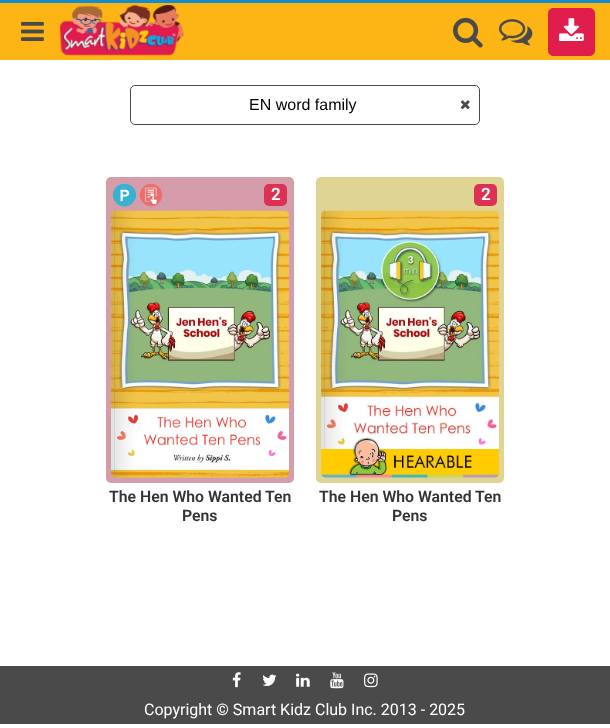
<svg xmlns="http://www.w3.org/2000/svg" width="610" height="728">
<defs>
<clipPath id="clip1"><path d="M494 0h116v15h-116zm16.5-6.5l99.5 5v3l-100-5z" clip-rule="evenodd"/></clipPath>
</defs>
<rect width="100%" height="100%" fill="#fff"/>
<rect width="610" height="3" fill="#138cce"/>
<rect y="3" width="610" height="57" fill="#fdb515"/>
<rect x="548.5" y="8.5" width="46" height="47" rx="4.5" fill="#e01e4e" stroke="#e01e4e"/>
<g clip-path="url(#clip1)">
<rect x="510" y="-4" width="100" height="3" fill="#29d" filter="blur(5px)"/>
</g>
<image x="21" y="21" width="23" height="20" href="media/1.png"/>
<image x="59" y="5" width="126" height="51" href="media/2.png"/>
<image x="453" y="17" width="30" height="31" href="media/3.png"/>
<image x="499" y="19" width="34" height="27" href="media/4.png"/>
<image x="559" y="18" width="25" height="23" href="media/5.png"/>
<rect x="130.5" y="85.5" width="349" height="39" rx="4.5" fill="none" stroke="#4a4a4a"/>
<text x="249" y="110" style="font-family:Liberation Sans;font-size:16px;fill:#000">EN word family</text>
<image x="460" y="100" width="10" height="10" href="media/6.png"/>
<rect x="106" y="177" width="188" height="306" rx="5" fill="#d49da9"/>
<rect x="113" y="184" width="23" height="22" rx="11" fill="#3ab1d3"/>
<image x="112" y="183" width="24" height="24" href="media/7.png"/>
<circle cx="151" cy="195" r="11" fill="#e96f6f"/>
<image x="140" y="184" width="23" height="23" href="media/8.png"/>
<rect x="264" y="184" width="23" height="22" rx="5" fill="#dc3153"/>
<text x="271" y="200" style="font-family:Roboto;font-size:17px;font-weight:600;fill:#fff">2</text>
<image x="111" y="210" width="178" height="268" href="media/9.png"/>
<text x="109" y="502" style="font-family:Roboto;font-size:15.8px;font-weight:600;fill:#333">The Hen Who Wanted Ten</text>
<text x="182" y="521" style="font-family:Roboto;font-size:15.8px;font-weight:600;fill:#333">Pens</text>
<rect x="316" y="177" width="188" height="306" rx="5" fill="#e0d494"/>
<rect x="474" y="184" width="23" height="22" rx="5" fill="#dc3153"/>
<text x="481" y="200" style="font-family:Roboto;font-size:17px;font-weight:600;fill:#fff">2</text>
<image x="321" y="210" width="178" height="268" href="media/10.png"/>
<text x="319" y="502" style="font-family:Roboto;font-size:15.8px;font-weight:600;fill:#333">The Hen Who Wanted Ten</text>
<text x="392" y="521" style="font-family:Roboto;font-size:15.8px;font-weight:600;fill:#333">Pens</text>
<rect y="666" width="610" height="58" fill="#4a4a4a"/>
<image x="232" y="672" width="9" height="16" href="media/11.png"/>
<image x="262" y="674" width="15" height="12" href="media/12.png"/>
<image x="296" y="673" width="14" height="14" href="media/13.png"/>
<image x="330" y="672" width="14" height="17" href="media/14.png"/>
<image x="364" y="673" width="14" height="15" href="media/15.png"/>
<text x="144" y="715" style="font-family:Roboto;font-size:16px;fill:#fff">Copyright © Smart Kidz Club Inc. 2013 - 2025</text>
</svg>
